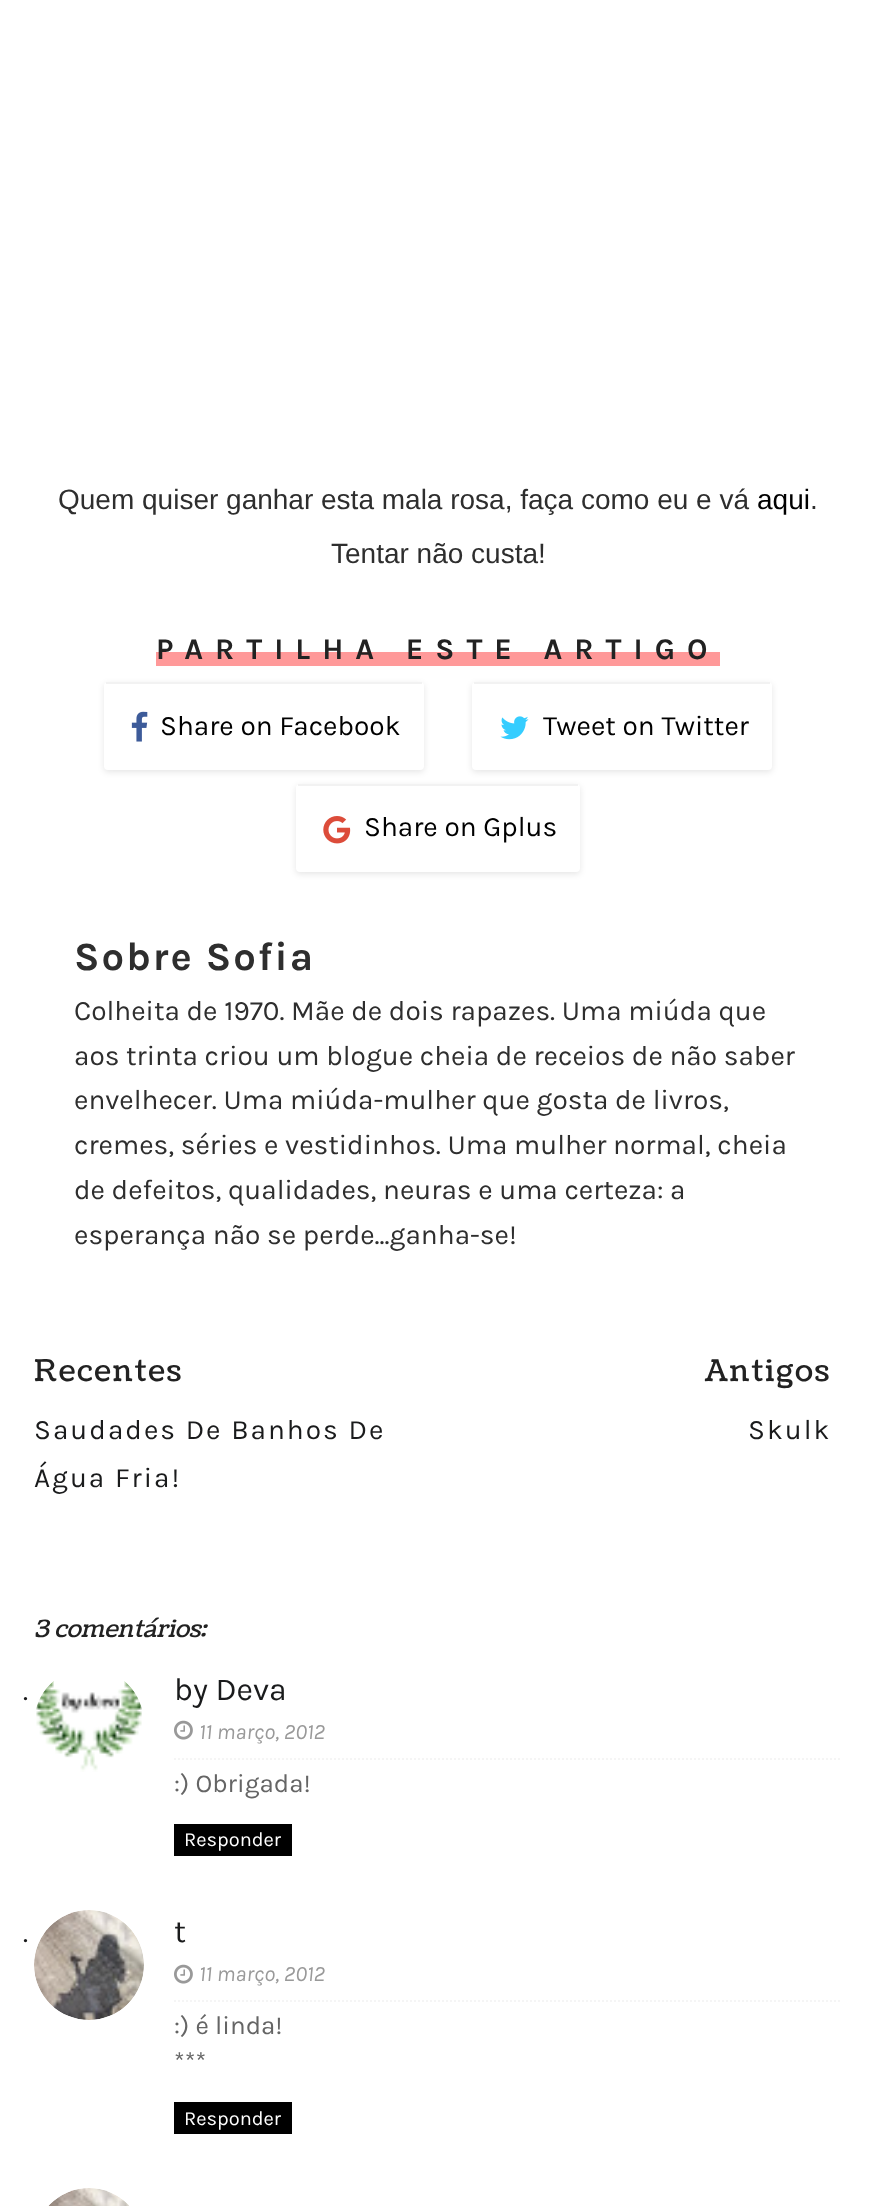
<svg xmlns="http://www.w3.org/2000/svg" width="875" height="2206">
<rect width="100%" height="100%" fill="#fff"/>
<text x="58" y="509" style="font-family:Liberation Sans;font-size:28px;fill:#2e2e2e">Quem quiser ganhar esta mala rosa, faça como eu e vá</text>
<text x="757" y="509" style="font-family:Liberation Sans;font-size:28px;fill:#000">aqui</text>
<text x="810" y="509" style="font-family:Liberation Sans;font-size:28px;fill:#2e2e2e">.</text>
<text x="331" y="563" style="font-family:Liberation Sans;font-size:28px;fill:#2e2e2e">Tentar não custa!</text>
<rect x="156" y="652" width="564" height="14" fill="#f99"/>
<text x="156" y="659" style="font-family:Karla;font-size:30px;font-weight:bold;letter-spacing:12px;fill:#222">PARTILHA ESTE ARTIGO</text>
<rect x="104" y="684" width="320" height="88" rx="4" fill="#0303031a" filter="blur(3px)"/>
<rect x="104" y="682" width="320" height="88" rx="4" fill="#fff"/>
<rect x="106" y="682" width="316" height="2" fill="#f2f2f2"/>
<image x="131" y="711" width="17" height="31" href="media/1.png"/>
<text x="160" y="735" style="font-family:Karla;font-size:28px;fill:#000">Share on Facebook</text>
<rect x="472" y="684" width="300" height="88" rx="4" fill="#0303031a" filter="blur(3px)"/>
<rect x="472" y="682" width="300" height="88" rx="4" fill="#fff"/>
<rect x="474" y="682" width="296" height="2" fill="#f2f2f2"/>
<image x="500" y="716" width="29" height="24" href="media/2.png"/>
<text x="543" y="735" style="font-family:Karla;font-size:28px;fill:#000">Tweet on Twitter</text>
<rect x="296" y="786" width="284" height="88" rx="4" fill="#0303031a" filter="blur(3px)"/>
<rect x="296" y="784" width="284" height="88" rx="4" fill="#fff"/>
<rect x="298" y="784" width="280" height="2" fill="#f2f2f2"/>
<image x="323" y="816" width="28" height="28" href="media/3.png"/>
<text x="364" y="836" style="font-family:Karla;font-size:28px;fill:#000">Share on Gplus</text>
<text x="74" y="970" style="font-family:Karla;font-size:40px;font-weight:bold;letter-spacing:2px;fill:#2e2e2e">Sobre Sofia</text>
<text x="74" y="1020" style="font-family:Karla;font-size:28px;fill:#2e2e2e">Colheita de 1970. Mãe de dois rapazes. Uma miúda que</text>
<text x="74" y="1065" style="font-family:Karla;font-size:28px;fill:#2e2e2e">aos trinta criou um blogue cheia de receios de não saber</text>
<text x="74" y="1109" style="font-family:Karla;font-size:28px;fill:#2e2e2e">envelhecer. Uma miúda-mulher que gosta de livros,</text>
<text x="74" y="1154" style="font-family:Karla;font-size:28px;fill:#2e2e2e">cremes, séries e vestidinhos. Uma mulher normal, cheia</text>
<text x="74" y="1199" style="font-family:Karla;font-size:28px;fill:#2e2e2e">de defeitos, qualidades, neuras e uma certeza: a</text>
<text x="74" y="1244" style="font-family:Karla;font-size:28px;fill:#2e2e2e">esperança não se perde...ganha-se!</text>
<text x="34" y="1381" style="font-family:Coustard;font-size:30px;letter-spacing:2px;fill:#222">Recentes</text>
<text x="34" y="1439" style="font-family:Karla;font-size:28px;letter-spacing:2px;fill:#1a1b1c">Saudades De Banhos De</text>
<text x="34" y="1487" style="font-family:Karla;font-size:28px;letter-spacing:2px;fill:#1a1b1c">Água Fria!</text>
<text x="705" y="1381" style="font-family:Coustard;font-size:30px;letter-spacing:2px;fill:#222">Antigos</text>
<text x="748" y="1439" style="font-family:Karla;font-size:28px;letter-spacing:2px;fill:#1a1b1c">Skulk</text>
<text x="34" y="1637" style="font-family:Coustard;font-size:24px;font-style:italic;fill:#222">3 comentários:</text>
<text x="23" y="1700" style="font-family:Karla;font-size:28px;fill:#1a1b1c">.</text>
<image x="36" y="1681" width="106" height="91" href="media/4.png"/>
<path d="M174 1759h668" fill="none" stroke="#f5f5f5" stroke-width="2" stroke-dasharray="2 2"/>
<text x="174" y="1700" style="font-family:Karla;font-size:32px;fill:#1a1b1c">by Deva</text>
<image x="174" y="1720" width="19" height="20" href="media/5.png"/>
<text x="199" y="1739" style="font-family:Karla;font-size:22px;font-style:italic;fill:#999">11 março, 2012</text>
<text x="174" y="1792" style="font-family:Karla;font-size:26px;fill:#656565">:) Obrigada!</text>
<rect x="174" y="1824" width="118" height="32" fill="#000"/>
<text x="184" y="1846" style="font-family:Karla;font-size:20px;fill:#fff">Responder</text>
<text x="23" y="1942" style="font-family:Karla;font-size:28px;fill:#1a1b1c">.</text>
<image x="34" y="1910" width="110" height="110" href="media/6.png"/>
<path d="M174 2001h668" fill="none" stroke="#f5f5f5" stroke-width="2" stroke-dasharray="2 2"/>
<text x="174" y="1942" style="font-family:Karla;font-size:32px;fill:#1a1b1c">t</text>
<image x="174" y="1964" width="19" height="20" href="media/5.png"/>
<text x="199" y="1981" style="font-family:Karla;font-size:22px;font-style:italic;fill:#999">11 março, 2012</text>
<text x="174" y="2034" style="font-family:Karla;font-size:26px;fill:#656565">:) é linda!</text>
<text x="174" y="2070" style="font-family:Karla;font-size:26px;fill:#656565">***</text>
<rect x="174" y="2102" width="118" height="32" fill="#000"/>
<text x="184" y="2125" style="font-family:Karla;font-size:20px;fill:#fff">Responder</text>
<image x="48" y="2188" width="81" height="18" href="media/7.png"/>
</svg>
